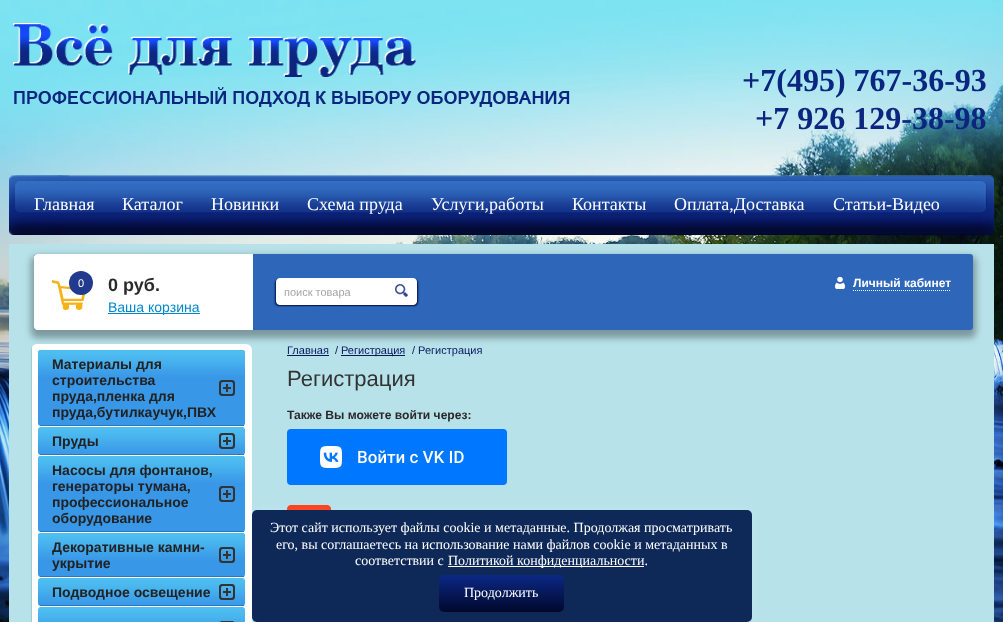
<svg xmlns="http://www.w3.org/2000/svg" width="1003" height="622">
<defs>
<linearGradient id="g1" gradientUnits="userSpaceOnUse" x1="502" y1="575" x2="502" y2="612"><stop offset="0" stop-color="#0b2886"/><stop offset="1" stop-color="#02082c"/></linearGradient>
</defs>
<rect width="100%" height="100%" fill="#fff"/>
<image x="0" y="0" width="1003" height="622" href="media/1.png"/>
<image x="13" y="23" width="403" height="54" href="media/2.png"/>
<image x="14" y="87" width="556" height="20" href="media/3.png"/>
<text x="742" y="91" style="font-family:Liberation Serif;font-size:32px;font-weight:bold;fill:#0c2680">+7(495) 767-36-93</text>
<text x="755" y="129" style="font-family:Liberation Serif;font-size:32px;font-weight:bold;fill:#0c2680">+7 926 129-38-98</text>
<rect x="9" y="244" width="985" height="378" fill="#b8e2ea"/>
<rect x="31" y="256" width="945" height="82" rx="6" fill="#7b979c" filter="blur(3.5px)"/>
<image x="31" y="344" width="221" height="278" href="media/10.png"/>
<rect x="38" y="456" width="207" height="76" rx="3" fill="#3997e7"/>
<image x="38" y="456" width="207" height="46" href="media/11.png"/>
<rect x="40" y="531" width="204" height="1" fill="#2d78b9"/>
<rect x="38" y="533" width="207" height="44" rx="3" fill="#3997e7"/>
<image x="38" y="533" width="207" height="30" href="media/13.png"/>
<rect x="40" y="576" width="204" height="1" fill="#2d78b9"/>
<image x="38" y="578" width="207" height="28" href="media/12.png"/>
<rect x="40" y="605" width="204" height="1" fill="#2d78b9"/>
<image x="38" y="607" width="207" height="15" href="media/14.png"/>
<image x="287" y="505" width="44" height="5" href="media/16.png"/>
<rect x="252" y="511" width="500" height="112" rx="5" fill="#ffffff1f" filter="blur(5px)"/>
<rect x="252" y="510" width="500" height="112" rx="5" fill="#0e2958"/>
<text x="270" y="532" style="font-family:Liberation Serif;font-size:14px;fill:#fff">Этот сайт использует файлы cookie и метаданные. Продолжая просматривать</text>
<text x="276" y="549" style="font-family:Liberation Serif;font-size:14px;fill:#fff">его, вы соглашаетесь на использование нами файлов cookie и метаданных в</text>
<text x="355" y="565" style="font-family:Liberation Serif;font-size:14px;fill:#fff">соответствии с</text>
<rect x="448" y="566" width="196" height="1" fill="#fff"/>
<text x="448" y="565" style="font-family:Liberation Serif;font-size:14px;fill:#fff">Политикой конфиденциальности.</text>
<rect x="439" y="575" width="125" height="37" rx="5" fill="url(#g1)"/>
<text x="464" y="597" style="font-family:Liberation Serif;font-size:14px;fill:#fff">Продолжить</text>
<image x="9" y="175" width="60" height="60" href="media/4.png"/>
<image x="58" y="175" width="915" height="60" href="media/5.png"/>
<image x="968" y="175" width="26" height="60" href="media/6.png"/>
<text x="34" y="210" style="font-family:Liberation Serif;font-size:18px;fill:#fff">Главная</text>
<text x="122" y="210" style="font-family:Liberation Serif;font-size:18px;fill:#fff">Каталог</text>
<text x="211" y="210" style="font-family:Liberation Serif;font-size:18px;fill:#fff">Новинки</text>
<text x="307" y="210" style="font-family:Liberation Serif;font-size:18px;fill:#fff">Схема пруда</text>
<text x="431" y="210" style="font-family:Liberation Serif;font-size:18px;fill:#fff">Услуги,работы</text>
<text x="572" y="210" style="font-family:Liberation Serif;font-size:18px;fill:#fff">Контакты</text>
<text x="674" y="210" style="font-family:Liberation Serif;font-size:18px;fill:#fff">Оплата,Доставка</text>
<text x="833" y="210" style="font-family:Liberation Serif;font-size:18px;fill:#fff">Статьи-Видео</text>
<rect x="34" y="254" width="939" height="76" rx="3" fill="#2e66ba"/>
<path d="M37 254h216v76h-216c-1.5 0-3-1.5-3-3v-70c0-1.5 1.5-3 3-3z" fill="#fff"/>
<image x="52" y="280" width="34" height="30" href="media/7.png"/>
<circle cx="81" cy="283" r="12" fill="#223a8d"/>
<text x="78" y="287" style="font-family:Liberation Sans;font-size:11px;fill:#fff">0</text>
<text x="108" y="291" style="font-family:Liberation Sans;font-size:18px;font-weight:bold;fill:#2a2a2a">0 руб.</text>
<rect x="108" y="313" width="92" height="1" fill="#08c"/>
<text x="108" y="312" style="font-family:Liberation Sans;font-size:14px;fill:#08c">Ваша корзина</text>
<image x="835" y="276" width="10" height="13" href="media/8.png"/>
<text x="853" y="287" style="font-family:Liberation Sans;font-size:12px;font-weight:bold;fill:#fff">Личный кабинет</text>
<path d="M853 290.5h98" fill="none" stroke="#fff" stroke-dasharray="1 1"/>
<image x="273" y="278" width="147" height="29" href="media/9.png"/>
<text x="284" y="296" style="font-family:Liberation Sans;font-size:11px;fill:#a5a5a5">поиск товара</text>
<rect x="38" y="350" width="207" height="76" rx="3" fill="#3997e7"/>
<image x="38" y="350" width="207" height="46" href="media/11.png"/>
<rect x="40" y="425" width="204" height="1" fill="#2d78b9"/>
<text x="52" y="369" style="font-family:Liberation Sans;font-size:14px;font-weight:bold;fill:#222">Материалы для</text>
<text x="52" y="385" style="font-family:Liberation Sans;font-size:14px;font-weight:bold;fill:#222">строительства</text>
<text x="52" y="401" style="font-family:Liberation Sans;font-size:14px;font-weight:bold;fill:#222">пруда,пленка для</text>
<text x="52" y="417" style="font-family:Liberation Sans;font-size:14px;font-weight:bold;fill:#222">пруда,бутилкаучук,ПВХ</text>
<image x="38" y="427" width="207" height="28" href="media/12.png"/>
<rect x="40" y="454" width="204" height="1" fill="#2d78b9"/>
<text x="52" y="446" style="font-family:Liberation Sans;font-size:14px;font-weight:bold;fill:#222">Пруды</text>
<text x="52" y="475" style="font-family:Liberation Sans;font-size:14px;font-weight:bold;fill:#222">Насосы для фонтанов,</text>
<text x="52" y="491" style="font-family:Liberation Sans;font-size:14px;font-weight:bold;fill:#222">генераторы тумана,</text>
<text x="52" y="507" style="font-family:Liberation Sans;font-size:14px;font-weight:bold;fill:#222">профессиональное</text>
<text x="52" y="523" style="font-family:Liberation Sans;font-size:14px;font-weight:bold;fill:#222">оборудование</text>
<text x="52" y="552" style="font-family:Liberation Sans;font-size:14px;font-weight:bold;fill:#222">Декоративные камни-</text>
<text x="52" y="568" style="font-family:Liberation Sans;font-size:14px;font-weight:bold;fill:#222">укрытие</text>
<text x="52" y="597" style="font-family:Liberation Sans;font-size:14px;font-weight:bold;fill:#222">Подводное освещение</text>
<text x="287" y="354" style="font-family:Liberation Sans;font-size:11px;fill:#08175e">Главная</text>
<rect x="287" y="355" width="42" height="1" fill="#08175e"/>
<text x="335" y="354" style="font-family:Liberation Sans;font-size:11px;fill:#08175e">/</text>
<rect x="341" y="355" width="64" height="1" fill="#08175e"/>
<text x="341" y="354" style="font-family:Liberation Sans;font-size:11px;fill:#08175e">Регистрация</text>
<text x="412" y="354" style="font-family:Liberation Sans;font-size:11px;fill:#08175e">/ Регистрация</text>
<text x="287" y="386" style="font-family:Liberation Sans;font-size:22px;fill:#333">Регистрация</text>
<text x="287" y="419" style="font-family:Liberation Sans;font-size:12.1px;font-weight:bold;fill:#2a2a2a">Также Вы можете войти через:</text>
<rect x="287" y="429" width="220" height="56" rx="4" fill="#07f"/>
<image x="320" y="446" width="144" height="22" href="media/15.png"/>
</svg>
